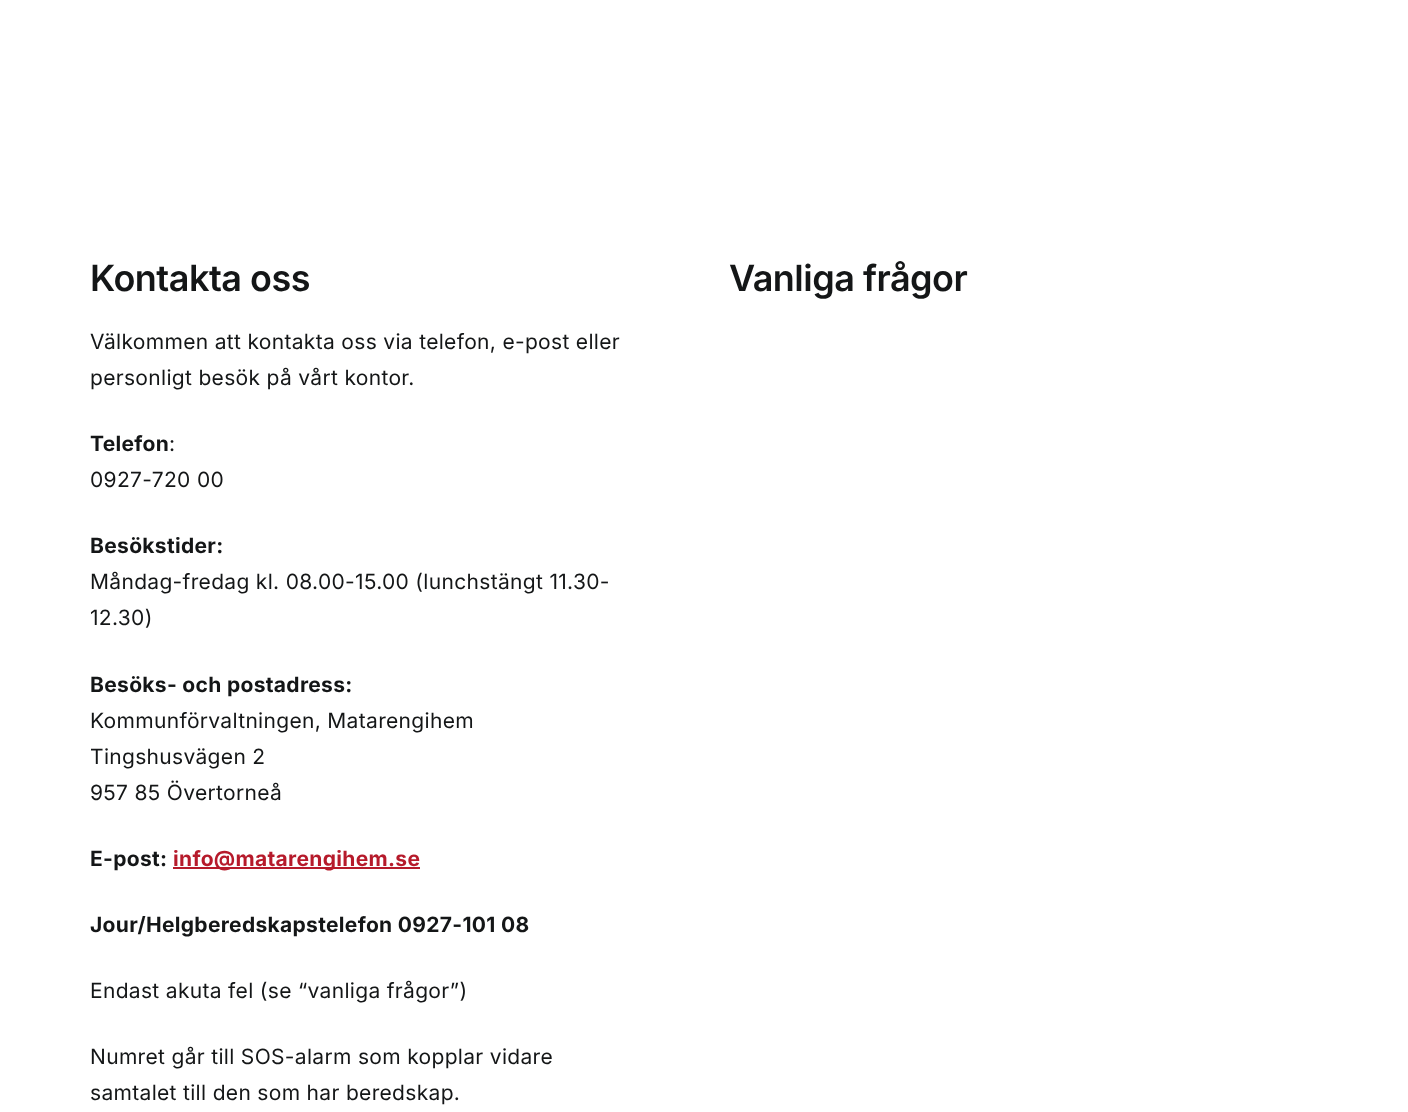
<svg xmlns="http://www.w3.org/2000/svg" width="1408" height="1112">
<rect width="100%" height="100%" fill="#fff"/>
<text x="90" y="291" style="font-family:Inter;font-size:36px;font-weight:600;letter-spacing:-0.5px;fill:#141617">Kontakta oss</text>
<text x="90" y="349" style="font-family:Inter;font-size:21px;letter-spacing:0.32px;fill:#141617">Välkommen att kontakta oss via telefon, e-post eller</text>
<text x="90" y="385" style="font-family:Inter;font-size:21px;letter-spacing:0.32px;fill:#141617">personligt besök på vårt kontor.</text>
<text x="90" y="451" style="font-family:Inter;font-size:21px;font-weight:bold;letter-spacing:0.32px;fill:#141617">Telefon</text>
<text x="169" y="451" style="font-family:Inter;font-size:21px;letter-spacing:0.32px;fill:#141617">:</text>
<text x="90" y="487" style="font-family:Inter;font-size:21px;letter-spacing:0.32px;fill:#141617">0927-720 00</text>
<text x="90" y="553" style="font-family:Inter;font-size:21px;font-weight:bold;letter-spacing:0.32px;fill:#141617">Besökstider:</text>
<text x="90" y="589" style="font-family:Inter;font-size:21px;letter-spacing:0.32px;fill:#141617">Måndag-fredag kl. 08.00-15.00 (lunchstängt 11.30-</text>
<text x="90" y="625" style="font-family:Inter;font-size:21px;letter-spacing:0.32px;fill:#141617">12.30)</text>
<text x="90" y="692" style="font-family:Inter;font-size:21px;font-weight:bold;letter-spacing:0.32px;fill:#141617">Besöks- och postadress:</text>
<text x="90" y="728" style="font-family:Inter;font-size:21px;letter-spacing:0.32px;fill:#141617">Kommunförvaltningen, Matarengihem</text>
<text x="90" y="764" style="font-family:Inter;font-size:21px;letter-spacing:0.32px;fill:#141617">Tingshusvägen 2</text>
<text x="90" y="800" style="font-family:Inter;font-size:21px;letter-spacing:0.32px;fill:#141617">957 85 Övertorneå</text>
<text x="90" y="866" style="font-family:Inter;font-size:21px;font-weight:bold;letter-spacing:0.32px;fill:#141617">E-post:</text>
<rect x="173" y="867" width="247" height="2" fill="#b61a2b"/>
<text x="173" y="866" style="font-family:Inter;font-size:21px;font-weight:bold;letter-spacing:0.32px;fill:#b61a2b">info@matarengihem.se</text>
<text x="90" y="932" style="font-family:Inter;font-size:21px;font-weight:bold;letter-spacing:0.32px;fill:#141617">Jour/Helgberedskapstelefon 0927-101 08</text>
<text x="90" y="998" style="font-family:Inter;font-size:21px;letter-spacing:0.32px;fill:#141617">Endast akuta fel (se “vanliga frågor”)</text>
<text x="90" y="1064" style="font-family:Inter;font-size:21px;letter-spacing:0.32px;fill:#141617">Numret går till SOS-alarm som kopplar vidare</text>
<text x="90" y="1100" style="font-family:Inter;font-size:21px;letter-spacing:0.32px;fill:#141617">samtalet till den som har beredskap.</text>
<text x="729" y="291" style="font-family:Inter;font-size:36px;font-weight:600;letter-spacing:-0.5px;fill:#141617">Vanliga frågor</text>
</svg>
